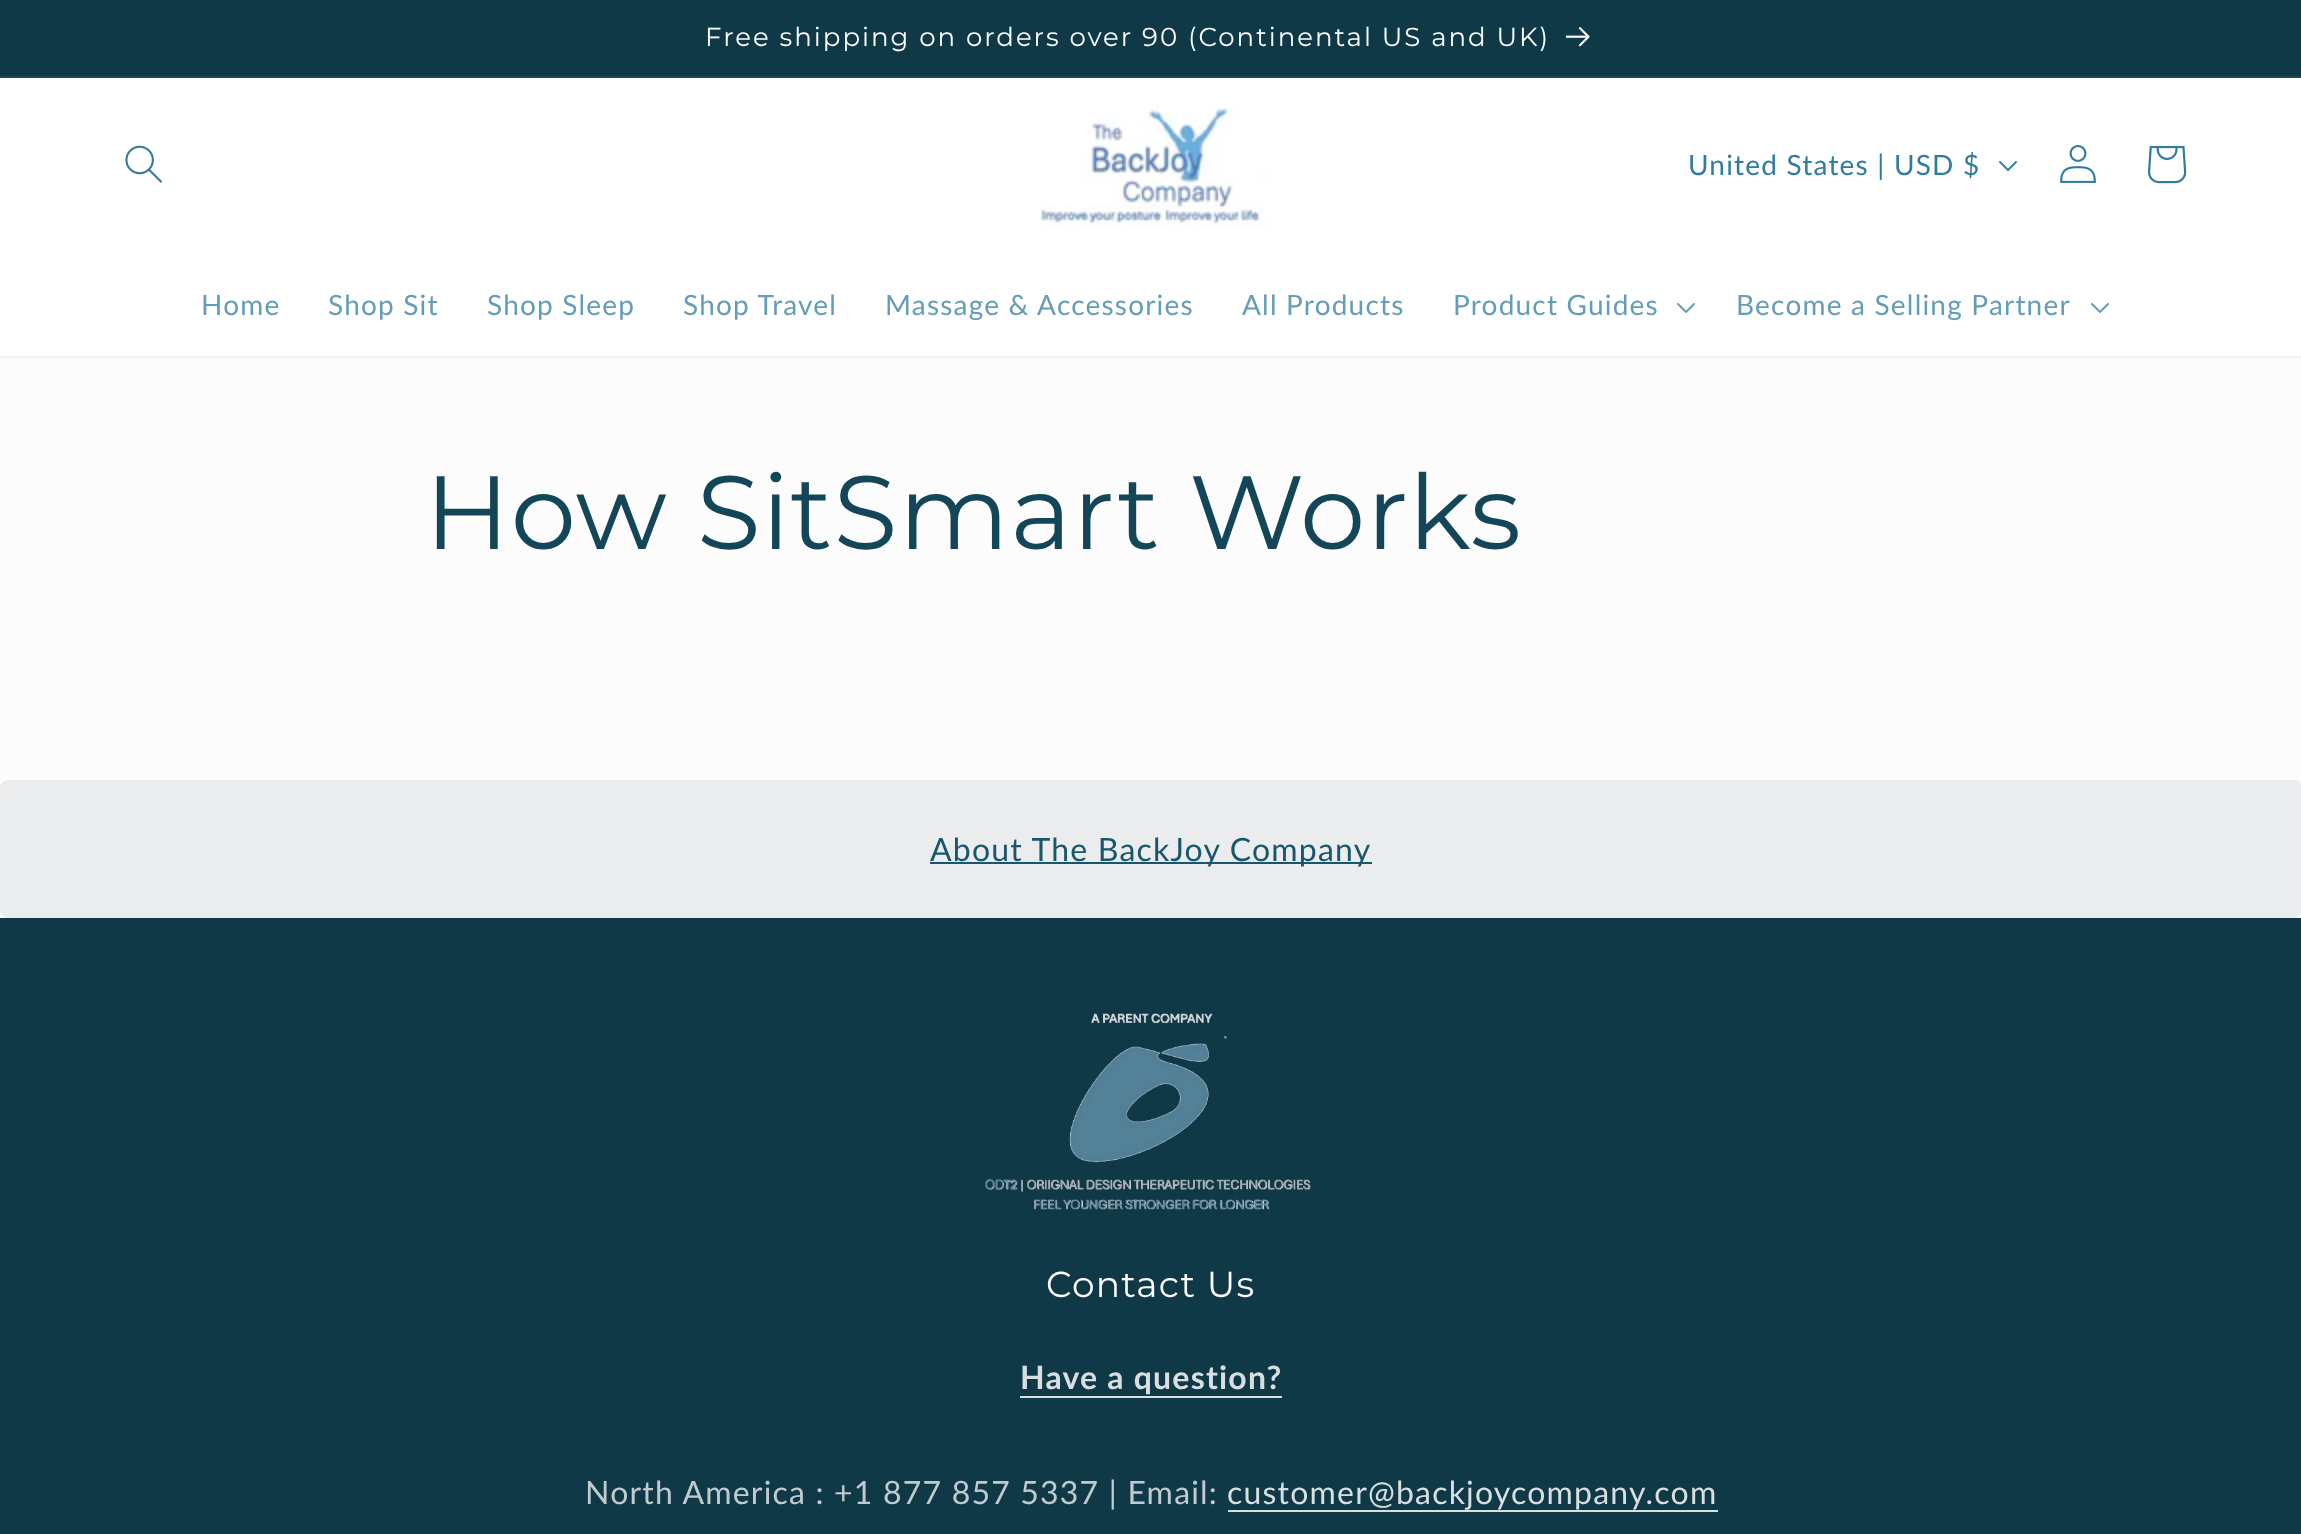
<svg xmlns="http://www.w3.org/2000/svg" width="2301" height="1534">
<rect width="100%" height="100%" fill="#fcfcfc"/>
<rect width="2301" height="76" fill="#103948"/>
<rect y="76" width="2301" height="2" fill="#234956"/>
<text x="705" y="46" style="font-family:Montserrat;font-size:26px;letter-spacing:2px;fill:#fcfcfc">Free shipping on orders over 90 (Continental US and UK)</text>
<image x="1566" y="27" width="24" height="20" href="media/1.png"/>
<rect y="78" width="2301" height="278" fill="#fff"/>
<rect y="356" width="2301" height="2" fill="#eef5f7"/>
<image x="125" y="145" width="37" height="38" href="media/2.png"/>
<image x="1040" y="103" width="232" height="125" href="media/3.png"/>
<text x="1688" y="175" style="font-family:Lato;font-size:28px;letter-spacing:1.2px;fill:#307c9f">United States | USD $</text>
<image x="1999" y="161" width="18" height="10" href="media/4.png"/>
<image x="2060" y="145" width="36" height="38" href="media/5.png"/>
<image x="2148" y="145" width="39" height="39" href="media/6.png"/>
<text x="201" y="315" style="font-family:Lato;font-size:28px;letter-spacing:1.2px;fill:#649db7">Home</text>
<text x="328" y="315" style="font-family:Lato;font-size:28px;letter-spacing:1.2px;fill:#649db7">Shop Sit</text>
<text x="487" y="315" style="font-family:Lato;font-size:28px;letter-spacing:1.2px;fill:#649db7">Shop Sleep</text>
<text x="683" y="315" style="font-family:Lato;font-size:28px;letter-spacing:1.2px;fill:#649db7">Shop Travel</text>
<text x="885" y="315" style="font-family:Lato;font-size:28px;letter-spacing:1.2px;fill:#649db7">Massage &amp; Accessories</text>
<text x="1242" y="315" style="font-family:Lato;font-size:28px;letter-spacing:1.2px;fill:#649db7">All Products</text>
<text x="1453" y="315" style="font-family:Lato;font-size:28px;letter-spacing:1.2px;fill:#649db7">Product Guides</text>
<image x="1677" y="303" width="18" height="10" href="media/7.png"/>
<text x="1736" y="315" style="font-family:Lato;font-size:28px;letter-spacing:1.2px;fill:#649db7">Become a Selling Partner</text>
<image x="2091" y="303" width="18" height="10" href="media/7.png"/>
<text x="425" y="549" style="font-family:Montserrat;font-size:104px;letter-spacing:1.2px;fill:#134658">How SitSmart Works</text>
<rect y="780" width="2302" height="138" rx="8" fill="#ebeced"/>
<rect x="930" y="862" width="442" height="2" fill="#18566c"/>
<text x="930" y="861" style="font-family:Lato;font-size:32px;letter-spacing:1.2px;fill:#18566c">About The BackJoy Company</text>
<rect y="918" width="2301" height="616" fill="#103948"/>
<image x="985" y="1013" width="326" height="197" href="media/8.png"/>
<text x="1046" y="1297" style="font-family:Montserrat;font-size:36px;letter-spacing:1.2px;fill:#fcfcfc">Contact Us</text>
<text x="1020" y="1389" style="font-family:Lato;font-size:32px;font-weight:bold;letter-spacing:1.2px;fill:#d9dfe1">Have a question?</text>
<rect x="1020" y="1396" width="262" height="2" fill="#d9dfe1"/>
<text x="585" y="1504" style="font-family:Lato;font-size:32px;letter-spacing:1.2px;fill:#c1cbcf">North America : +1 877 857 5337 | Email:</text>
<text x="1227" y="1504" style="font-family:Lato;font-size:32px;letter-spacing:1.2px;fill:#d9dfe1">customer@backjoycompany.com</text>
<rect x="1228" y="1510" width="490" height="2" fill="#d9dfe1"/>
</svg>
